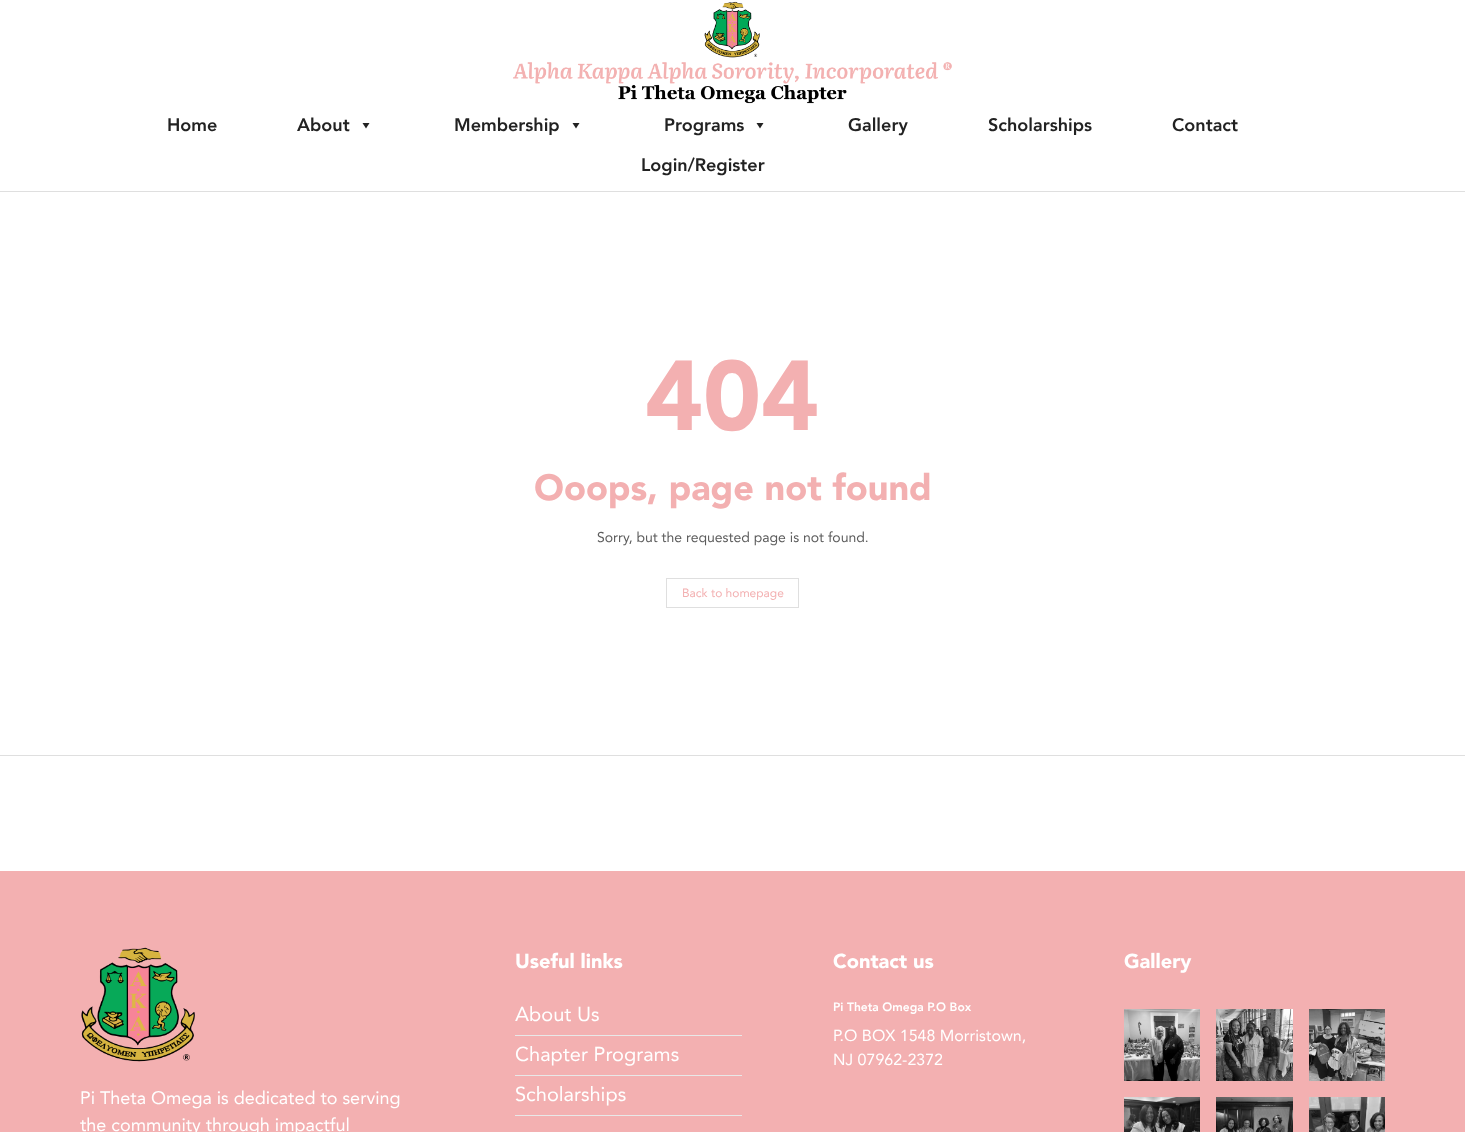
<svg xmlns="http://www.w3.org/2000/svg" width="1465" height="1132">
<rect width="100%" height="100%" fill="#fff"/>
<image x="513" y="1" width="439" height="103" href="media/1.png"/>
<text x="167" y="131" style="font-family:'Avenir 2';font-size:18px;font-weight:900;fill:#222">Home</text>
<text x="297" y="131" style="font-family:'Avenir 2';font-size:18px;font-weight:900;fill:#222">About</text>
<path d="M369.5 123l-3.5 5.5l-3.5-5.5z" fill="#222"/>
<text x="454" y="131" style="font-family:'Avenir 2';font-size:18px;font-weight:900;fill:#222">Membership</text>
<path d="M579.5 123l-3.5 5.5l-3.5-5.5z" fill="#222"/>
<text x="664" y="131" style="font-family:'Avenir 2';font-size:18px;font-weight:900;fill:#222">Programs</text>
<path d="M763.5 123l-3.5 5.5l-3.5-5.5z" fill="#222"/>
<text x="848" y="131" style="font-family:'Avenir 2';font-size:18px;font-weight:900;fill:#222">Gallery</text>
<text x="988" y="131" style="font-family:'Avenir 2';font-size:18px;font-weight:900;fill:#222">Scholarships</text>
<text x="1172" y="131" style="font-family:'Avenir 2';font-size:18px;font-weight:900;fill:#222">Contact</text>
<text x="641" y="171" style="font-family:'Avenir 2';font-size:18px;font-weight:900;fill:#222">Login/Register</text>
<rect y="191" width="1465" height="1" fill="#dfdfdf"/>
<rect y="755" width="1465" height="1" fill="#dfdfdf"/>
<text x="645" y="430" style="font-family:Avenir;font-size:98px;font-weight:900;fill:#f3b0b1">404</text>
<text x="534" y="500" style="font-family:Avenir;font-size:36px;font-weight:900;fill:#f3b0b1">Ooops, page not found</text>
<text x="597" y="542" style="font-family:Avenir;font-size:14px;fill:#5c5c5c">Sorry, but the requested page is not found.</text>
<rect x="666.5" y="578.5" width="132" height="29" fill="none" stroke="#dfdfdf"/>
<text x="682" y="597" style="font-family:Avenir;font-size:12px;fill:#f3b0b1">Back to homepage</text>
<rect y="871" width="1465" height="261" fill="#f3b0b1"/>
<text x="515" y="968" style="font-family:Avenir;font-size:20px;font-weight:900;fill:#fff">Useful links</text>
<rect x="515" y="1035" width="227" height="1" fill="#e8e8e8"/>
<text x="515" y="1021" style="font-family:Avenir;font-size:20px;fill:#fff">About Us</text>
<rect x="515" y="1075" width="227" height="1" fill="#e8e8e8"/>
<text x="515" y="1061" style="font-family:Avenir;font-size:20px;fill:#fff">Chapter Programs</text>
<rect x="515" y="1115" width="227" height="1" fill="#e8e8e8"/>
<text x="515" y="1101" style="font-family:Avenir;font-size:20px;fill:#fff">Scholarships</text>
<text x="833" y="968" style="font-family:Avenir;font-size:20px;font-weight:900;fill:#fff">Contact us</text>
<text x="833" y="1011" style="font-family:'Avenir 2';font-size:12px;font-weight:900;fill:#fff">Pi Theta Omega P.O Box</text>
<text x="833" y="1041" style="font-family:Avenir;font-size:16px;fill:#fff">P.O BOX 1548 Morristown,</text>
<text x="833" y="1065" style="font-family:Avenir;font-size:16px;fill:#fff">NJ 07962-2372</text>
<text x="1124" y="968" style="font-family:Avenir;font-size:20px;font-weight:900;fill:#fff">Gallery</text>
<image x="1124" y="1009" width="76" height="72" href="media/2.png"/>
<image x="1216" y="1009" width="77" height="72" href="media/3.png"/>
<image x="1309" y="1009" width="76" height="72" href="media/4.png"/>
<image x="1124" y="1097" width="76" height="35" href="media/5.png"/>
<image x="1216" y="1097" width="77" height="35" href="media/6.png"/>
<image x="1309" y="1097" width="76" height="35" href="media/7.png"/>
<image x="81" y="947" width="114" height="115" href="media/8.png"/>
<text x="80" y="1104" style="font-family:Avenir;font-size:18px;fill:#fff">Pi Theta Omega is dedicated to serving</text>
<text x="80" y="1131" style="font-family:Avenir;font-size:18px;fill:#fff">the community through impactful</text>
</svg>
